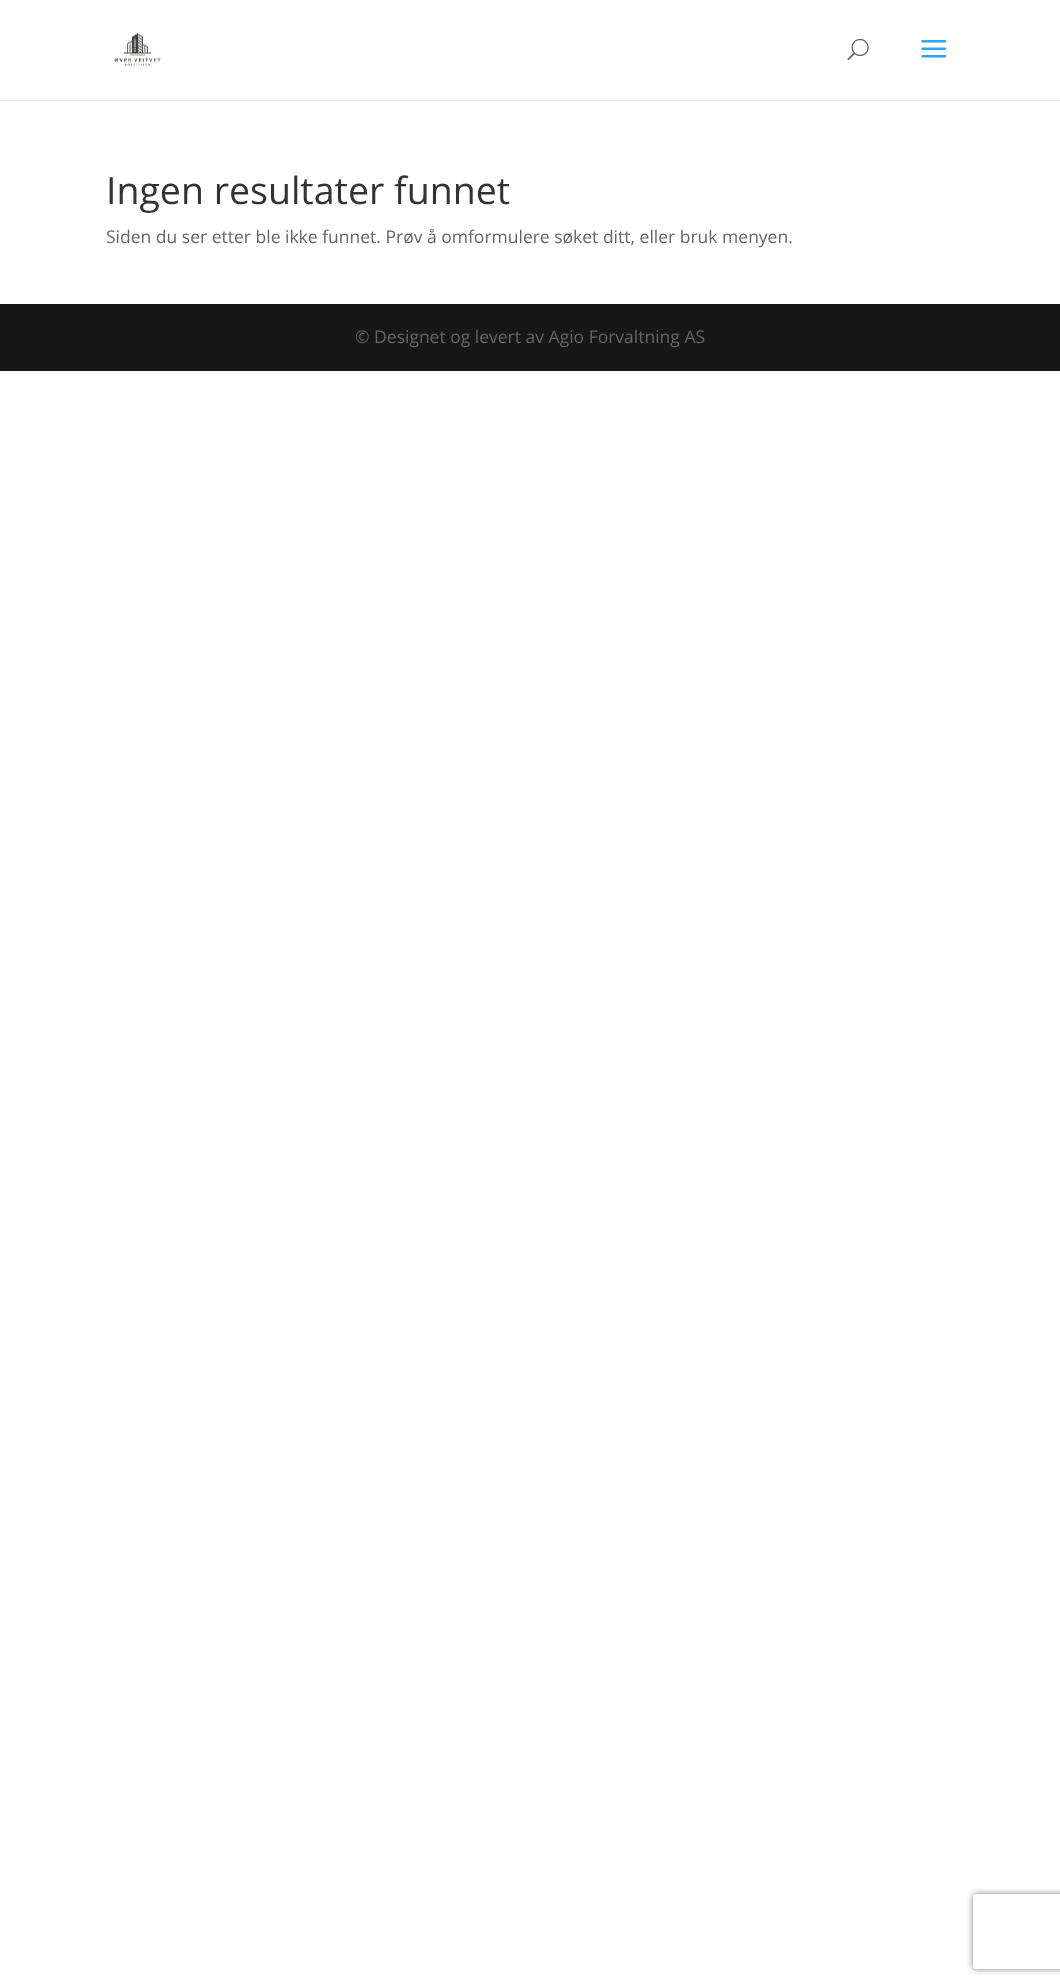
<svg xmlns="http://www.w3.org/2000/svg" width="1060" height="1986">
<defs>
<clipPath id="clip1"><path d="M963 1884h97v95h-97zm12.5 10h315c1.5 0 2.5 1 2.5 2.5v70c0 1.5-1 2.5-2.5 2.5h-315c-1.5 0-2.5-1-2.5-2.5v-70c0-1.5 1-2.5 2.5-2.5z" clip-rule="evenodd"/></clipPath>
</defs>
<rect width="100%" height="100%" fill="#fff"/>
<rect y="100" width="1060" height="1" fill="#e6e6e6"/>
<image x="114" y="33" width="47" height="34" href="media/1.png"/>
<image x="847" y="38" width="22" height="23" href="media/2.png"/>
<image x="921" y="40" width="26" height="18" href="media/3.png"/>
<text x="106" y="204" style="font-family:Open Sans;font-size:37.5px;fill:#333">Ingen resultater funnet</text>
<text x="106" y="243" style="font-family:Open Sans;font-size:17.5px;fill:#666">Siden du ser etter ble ikke funnet. Prøv å omformulere søket ditt, eller bruk menyen.</text>
<rect y="304" width="1060" height="67" fill="#171717"/>
<text x="355" y="343" style="font-family:Open Sans;font-size:17.5px;fill:#666">© Designet og levert av Agio Forvaltning AS</text>
<g clip-path="url(#clip1)">
<rect x="973" y="1894" width="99" height="75" rx="2.5" fill="#808080" filter="blur(3px)"/>
</g>
</svg>
